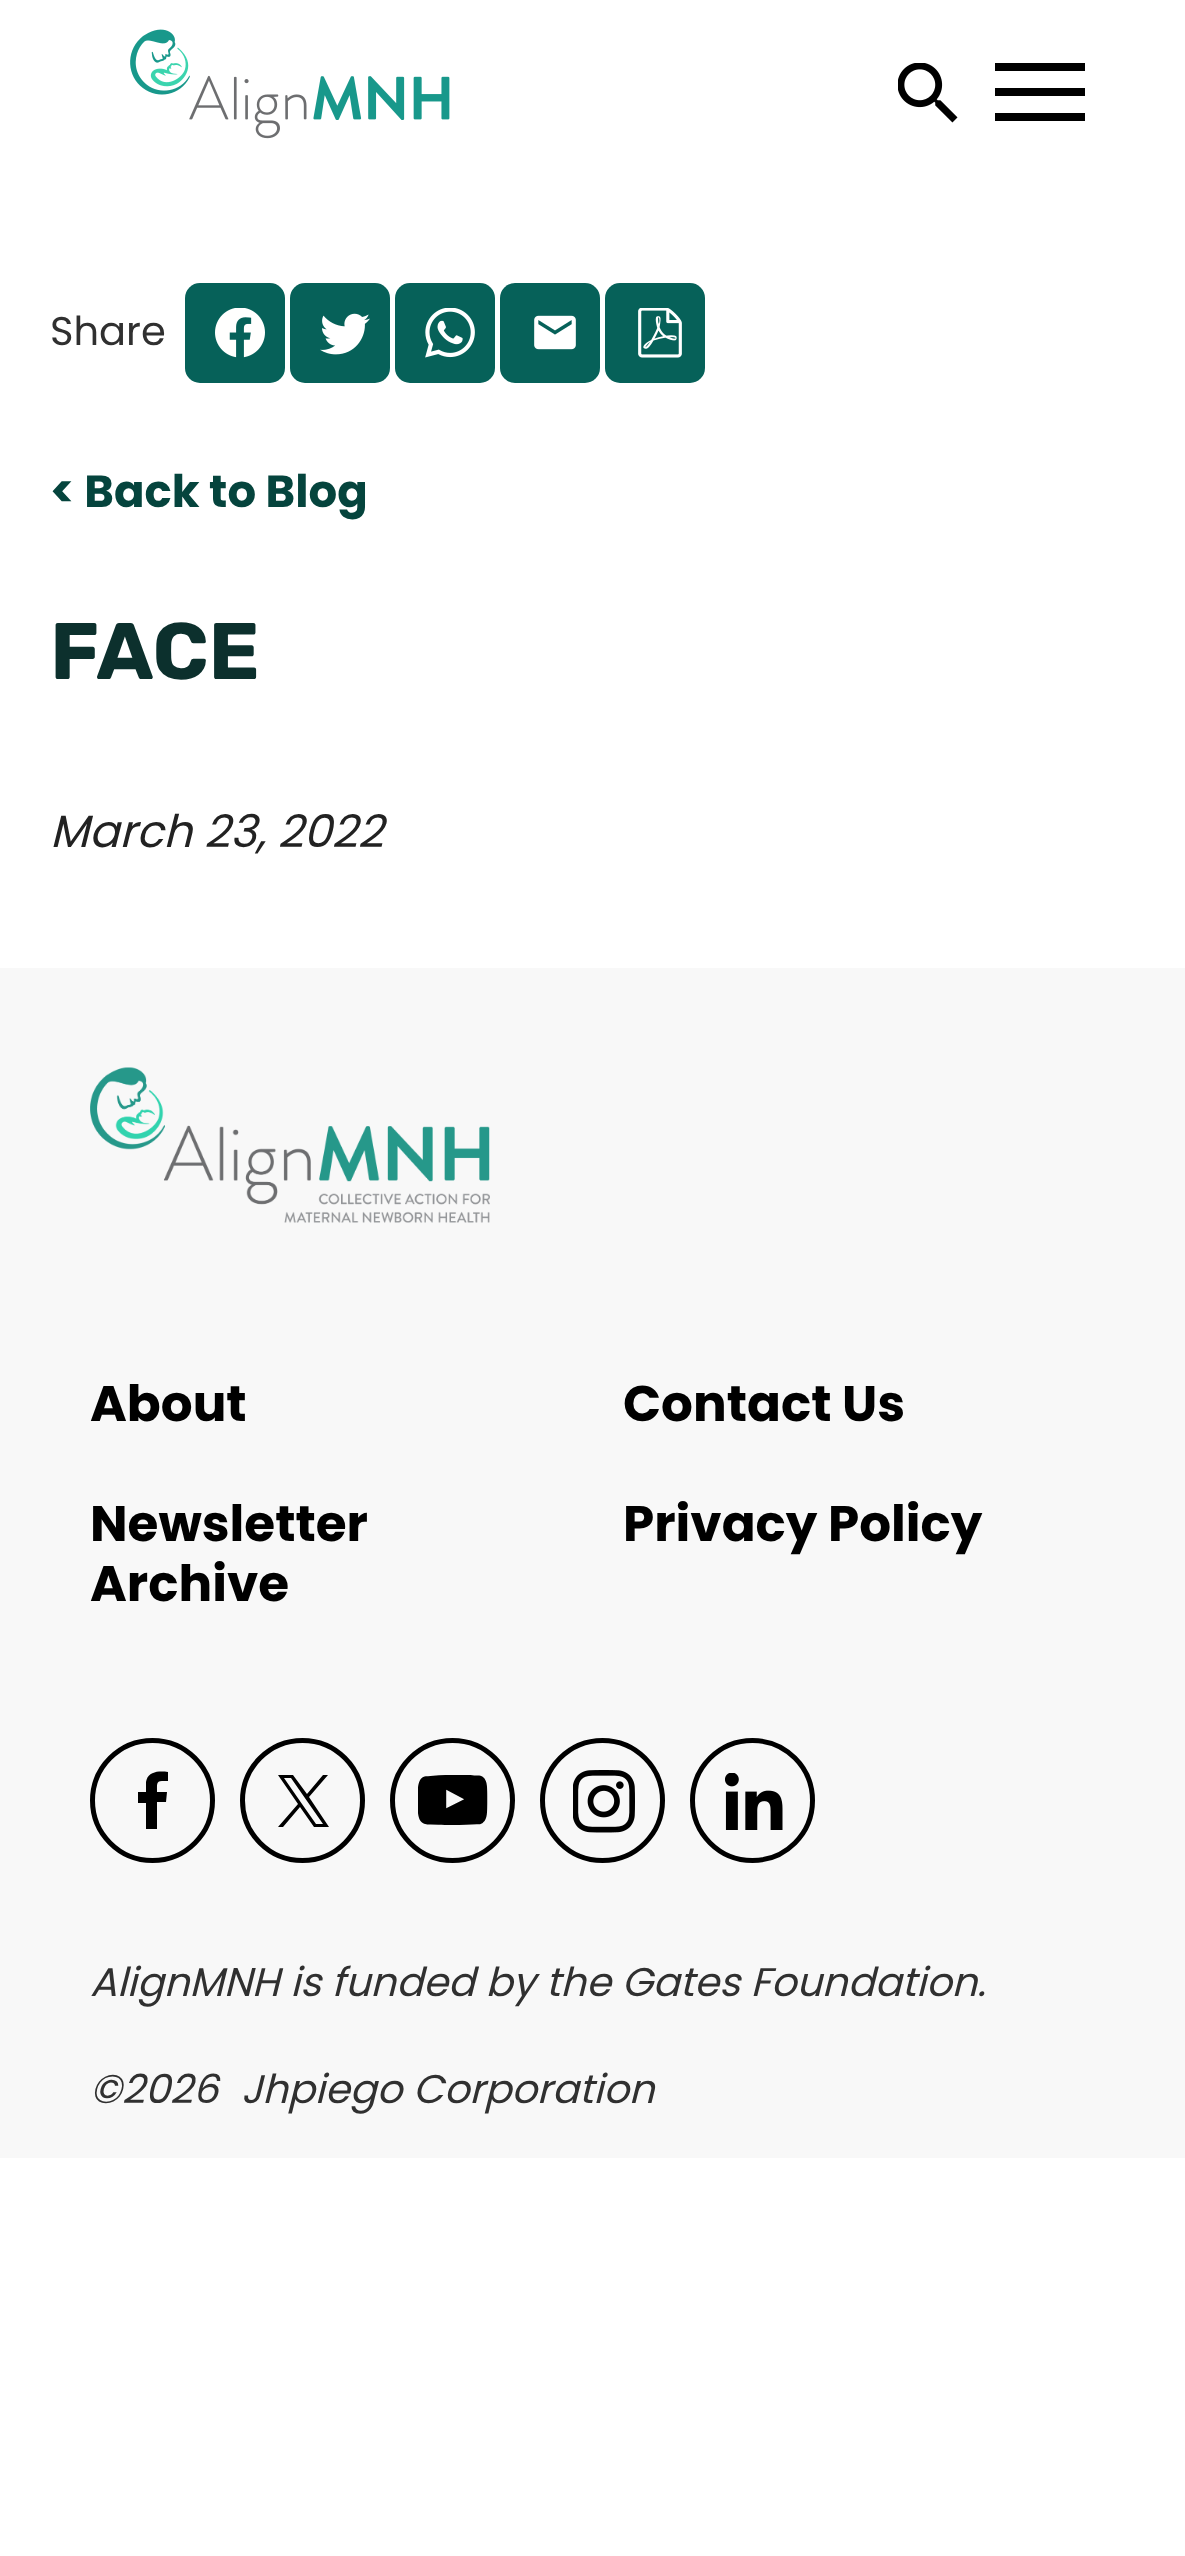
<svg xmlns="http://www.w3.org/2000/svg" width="1185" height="2556">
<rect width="100%" height="100%" fill="#fff"/>
<image x="130" y="29" width="320" height="110" href="media/1.png"/>
<image x="898" y="63" width="60" height="60" href="media/2.png"/>
<rect x="995" y="63" width="90" height="8" fill="#000"/>
<rect x="995" y="88" width="90" height="8" fill="#000"/>
<rect x="995" y="113" width="90" height="8" fill="#000"/>
<text x="50" y="345" style="font-family:Poppins;font-size:40px;fill:#303030">Share</text>
<rect x="185" y="283" width="100" height="100" rx="15" fill="#066159"/>
<image x="215" y="308" width="50" height="50" href="media/3.png"/>
<rect x="290" y="283" width="100" height="100" rx="15" fill="#066159"/>
<image x="320" y="313" width="50" height="42" href="media/4.png"/>
<rect x="395" y="283" width="100" height="100" rx="15" fill="#066159"/>
<image x="425" y="308" width="50" height="50" href="media/5.png"/>
<rect x="500" y="283" width="100" height="100" rx="15" fill="#066159"/>
<image x="534" y="315" width="42" height="35" href="media/6.png"/>
<rect x="605" y="283" width="100" height="100" rx="15" fill="#066159"/>
<image x="638" y="308" width="44" height="50" href="media/7.png"/>
<text x="50" y="507" style="font-family:Poppins;font-size:45px;font-weight:bold;fill:#05443d">&lt; Back to Blog</text>
<text x="50" y="679" style="font-family:Rubik;font-size:80px;font-weight:bold;fill:#0c302d">FACE</text>
<text x="50" y="847" style="font-family:Poppins;font-size:45px;font-style:italic;fill:#222">March 23, 2022</text>
<rect y="968" width="1185" height="1190" fill="#f8f8f8"/>
<image x="90" y="1067" width="400" height="156" href="media/8.png"/>
<text x="90" y="1421" style="font-family:Poppins;font-size:50px;font-weight:bold;fill:#000">About</text>
<text x="623" y="1421" style="font-family:Poppins;font-size:50px;font-weight:bold;fill:#000">Contact Us</text>
<text x="90" y="1541" style="font-family:Poppins;font-size:50px;font-weight:bold;fill:#000">Newsletter</text>
<text x="90" y="1601" style="font-family:Poppins;font-size:50px;font-weight:bold;fill:#000">Archive</text>
<text x="623" y="1541" style="font-family:Poppins;font-size:50px;font-weight:bold;fill:#000">Privacy Policy</text>
<path d="M168 1772v9c-12 0-11 0-11 11h10l-1 10h-9v27h-11v-26h-8v-11h8v-10c2-11 13-11 22-10z" fill="#000"/>
<circle cx="152.5" cy="1800.5" r="60" fill="none" stroke="#000" stroke-width="5"/>
<path d="M309 1797l19-22h-5l-16 19l-14-19h-15l20 29l-20 23h5l17-20l14 20h15zm-7 7l-18-26h7l32 46h-7z" fill="#000"/>
<circle cx="302.5" cy="1800.5" r="60" fill="none" stroke="#000" stroke-width="5"/>
<image x="418" y="1775" width="70" height="50" href="media/9.png"/>
<circle cx="452.5" cy="1800.5" r="60" fill="none" stroke="#000" stroke-width="5"/>
<image x="573" y="1770" width="62" height="63" href="media/10.png"/>
<circle cx="602.5" cy="1800.5" r="60" fill="none" stroke="#000" stroke-width="5"/>
<image x="725" y="1773" width="58" height="57" href="media/11.png"/>
<circle cx="752.5" cy="1800.5" r="60" fill="none" stroke="#000" stroke-width="5"/>
<text x="90" y="1996" style="font-family:Poppins;font-size:40px;font-style:italic;fill:#303030">AlignMNH is funded by the Gates Foundation.</text>
<text x="90" y="2103" style="font-family:Poppins;font-size:40px;font-style:italic;fill:#303030">©2026</text>
<text x="241" y="2103" style="font-family:Poppins;font-size:40px;font-style:italic;fill:#303030">Jhpiego Corporation</text>
</svg>
